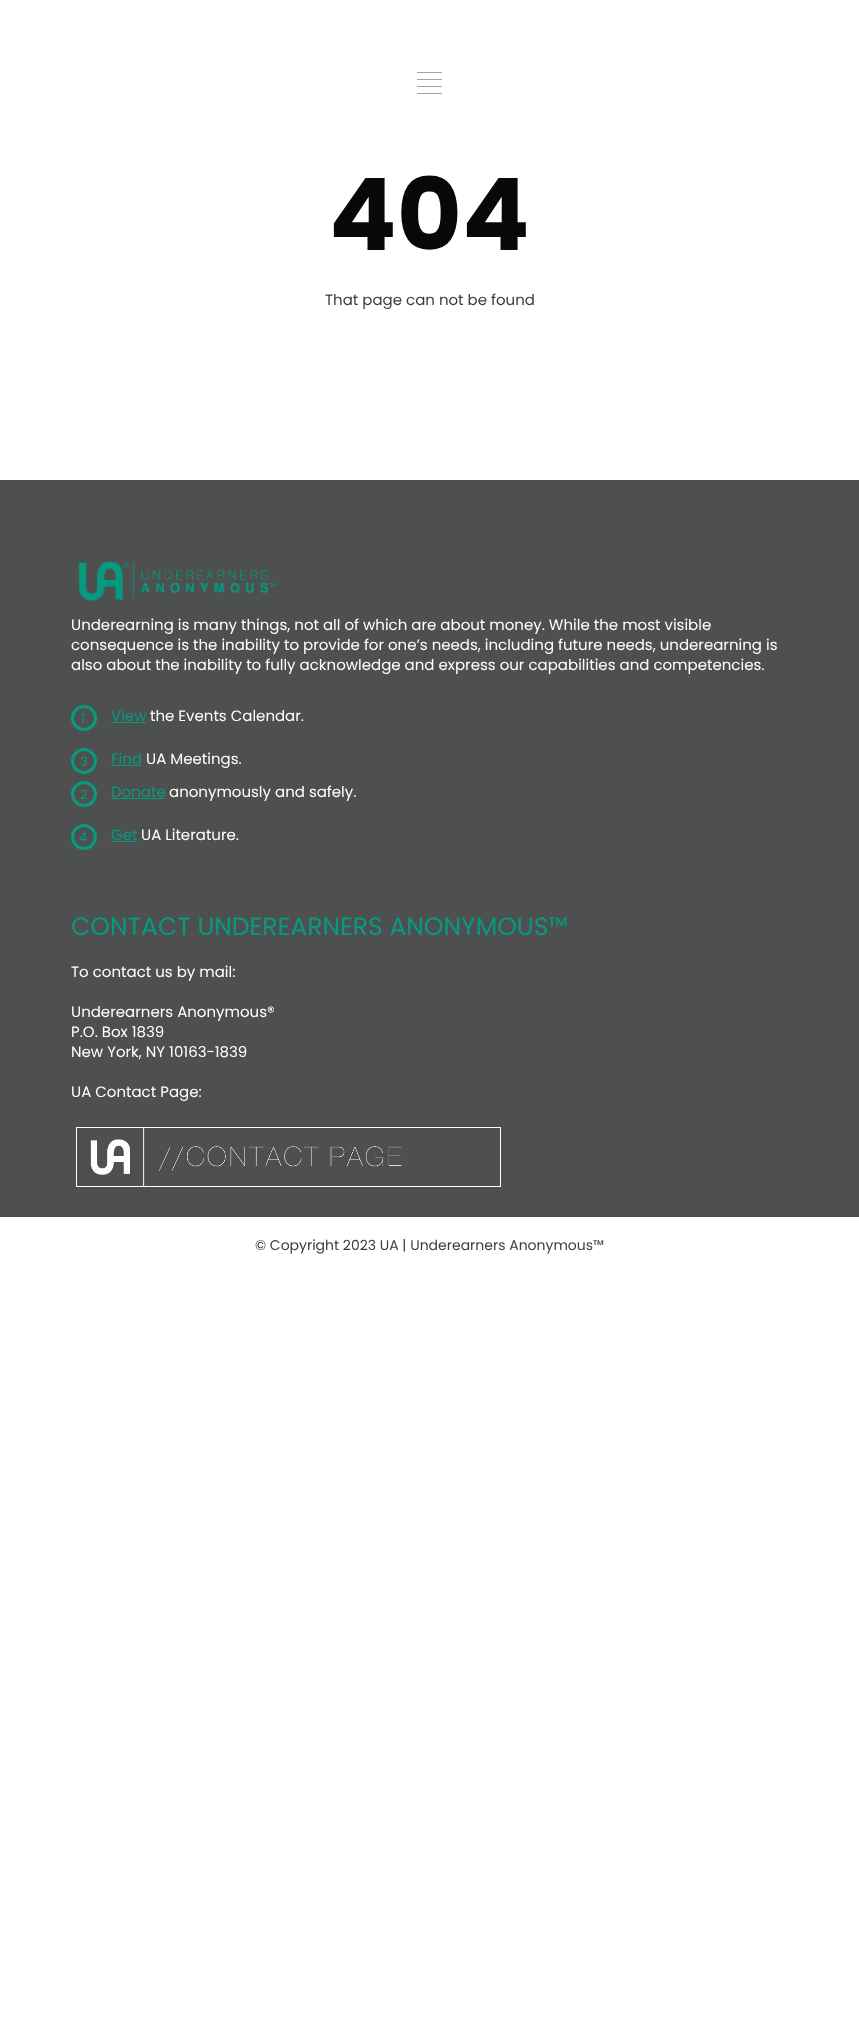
<svg xmlns="http://www.w3.org/2000/svg" width="859" height="2037">
<rect width="100%" height="100%" fill="#fff"/>
<rect x="417" y="72" width="25" height="1" fill="#a3a3a3"/>
<rect x="417" y="79" width="25" height="1" fill="#a3a3a3"/>
<rect x="417" y="86" width="25" height="1" fill="#a3a3a3"/>
<rect x="417" y="93" width="25" height="1" fill="#a3a3a3"/>
<text x="329" y="250" style="font-family:Poppins;font-size:100px;font-weight:bold;fill:#08070a">404</text>
<text x="325" y="305" style="font-family:Poppins;font-size:15px;fill:#3d3d3d">That page can not be found</text>
<rect y="480" width="859" height="737" fill="#4e504f"/>
<image x="78" y="561" width="200" height="40" href="media/1.png"/>
<text x="71" y="630" style="font-family:Poppins;font-size:15px;fill:#fff">Underearning is many things, not all of which are about money. While the most visible</text>
<text x="71" y="650" style="font-family:Poppins;font-size:15px;fill:#fff">consequence is the inability to provide for one’s needs, including future needs, underearning is</text>
<text x="71" y="670" style="font-family:Poppins;font-size:15px;fill:#fff">also about the inability to fully acknowledge and express our capabilities and competencies.</text>
<circle cx="84" cy="718" r="11.5" fill="none" stroke="#069a81" stroke-width="3"/>
<text x="81" y="723" style="font-family:Poppins;font-size:13px;fill:#069a81">1</text>
<text x="111" y="721" style="font-family:Poppins;font-size:15px;fill:#069a81">View</text>
<rect x="111" y="722" width="35" height="1" fill="#069a81"/>
<text x="150" y="721" style="font-family:Poppins;font-size:15px;fill:#fff">the Events Calendar.</text>
<circle cx="84" cy="761" r="11.5" fill="none" stroke="#069a81" stroke-width="3"/>
<text x="80" y="766" style="font-family:Poppins;font-size:13px;fill:#069a81">3</text>
<text x="111" y="764" style="font-family:Poppins;font-size:15px;fill:#069a81">Find</text>
<rect x="111" y="765" width="31" height="1" fill="#069a81"/>
<text x="146" y="764" style="font-family:Poppins;font-size:15px;fill:#fff">UA Meetings.</text>
<circle cx="84" cy="794" r="11.5" fill="none" stroke="#069a81" stroke-width="3"/>
<text x="80" y="799" style="font-family:Poppins;font-size:13px;fill:#069a81">2</text>
<text x="111" y="797" style="font-family:Poppins;font-size:15px;fill:#069a81">Donate</text>
<rect x="111" y="798" width="54" height="1" fill="#069a81"/>
<text x="169" y="797" style="font-family:Poppins;font-size:15px;fill:#fff">anonymously and safely.</text>
<circle cx="84" cy="837" r="11.5" fill="none" stroke="#069a81" stroke-width="3"/>
<text x="79" y="842" style="font-family:Poppins;font-size:13px;fill:#069a81">4</text>
<text x="111" y="840" style="font-family:Poppins;font-size:15px;fill:#069a81">Get</text>
<rect x="111" y="841" width="26" height="1" fill="#069a81"/>
<text x="141" y="840" style="font-family:Poppins;font-size:15px;fill:#fff">UA Literature.</text>
<text x="71" y="935" style="font-family:Poppins;font-size:25px;fill:#069a81">CONTACT UNDEREARNERS ANONYMOUS™</text>
<text x="71" y="977" style="font-family:Poppins;font-size:15px;fill:#fff">To contact us by mail:</text>
<text x="71" y="1017" style="font-family:Poppins;font-size:15px;fill:#fff">Underearners Anonymous®</text>
<text x="71" y="1037" style="font-family:Poppins;font-size:15px;fill:#fff">P.O. Box 1839</text>
<text x="71" y="1057" style="font-family:Poppins;font-size:15px;fill:#fff">New York, NY 10163-1839</text>
<text x="71" y="1097" style="font-family:Poppins;font-size:15px;fill:#fff">UA Contact Page:</text>
<image x="76" y="1127" width="425" height="60" href="media/2.png"/>
<text x="255" y="1250" style="font-family:Poppins;font-size:14px;fill:#3d3d3d">© Copyright 2023 UA | Underearners Anonymous™</text>
</svg>
